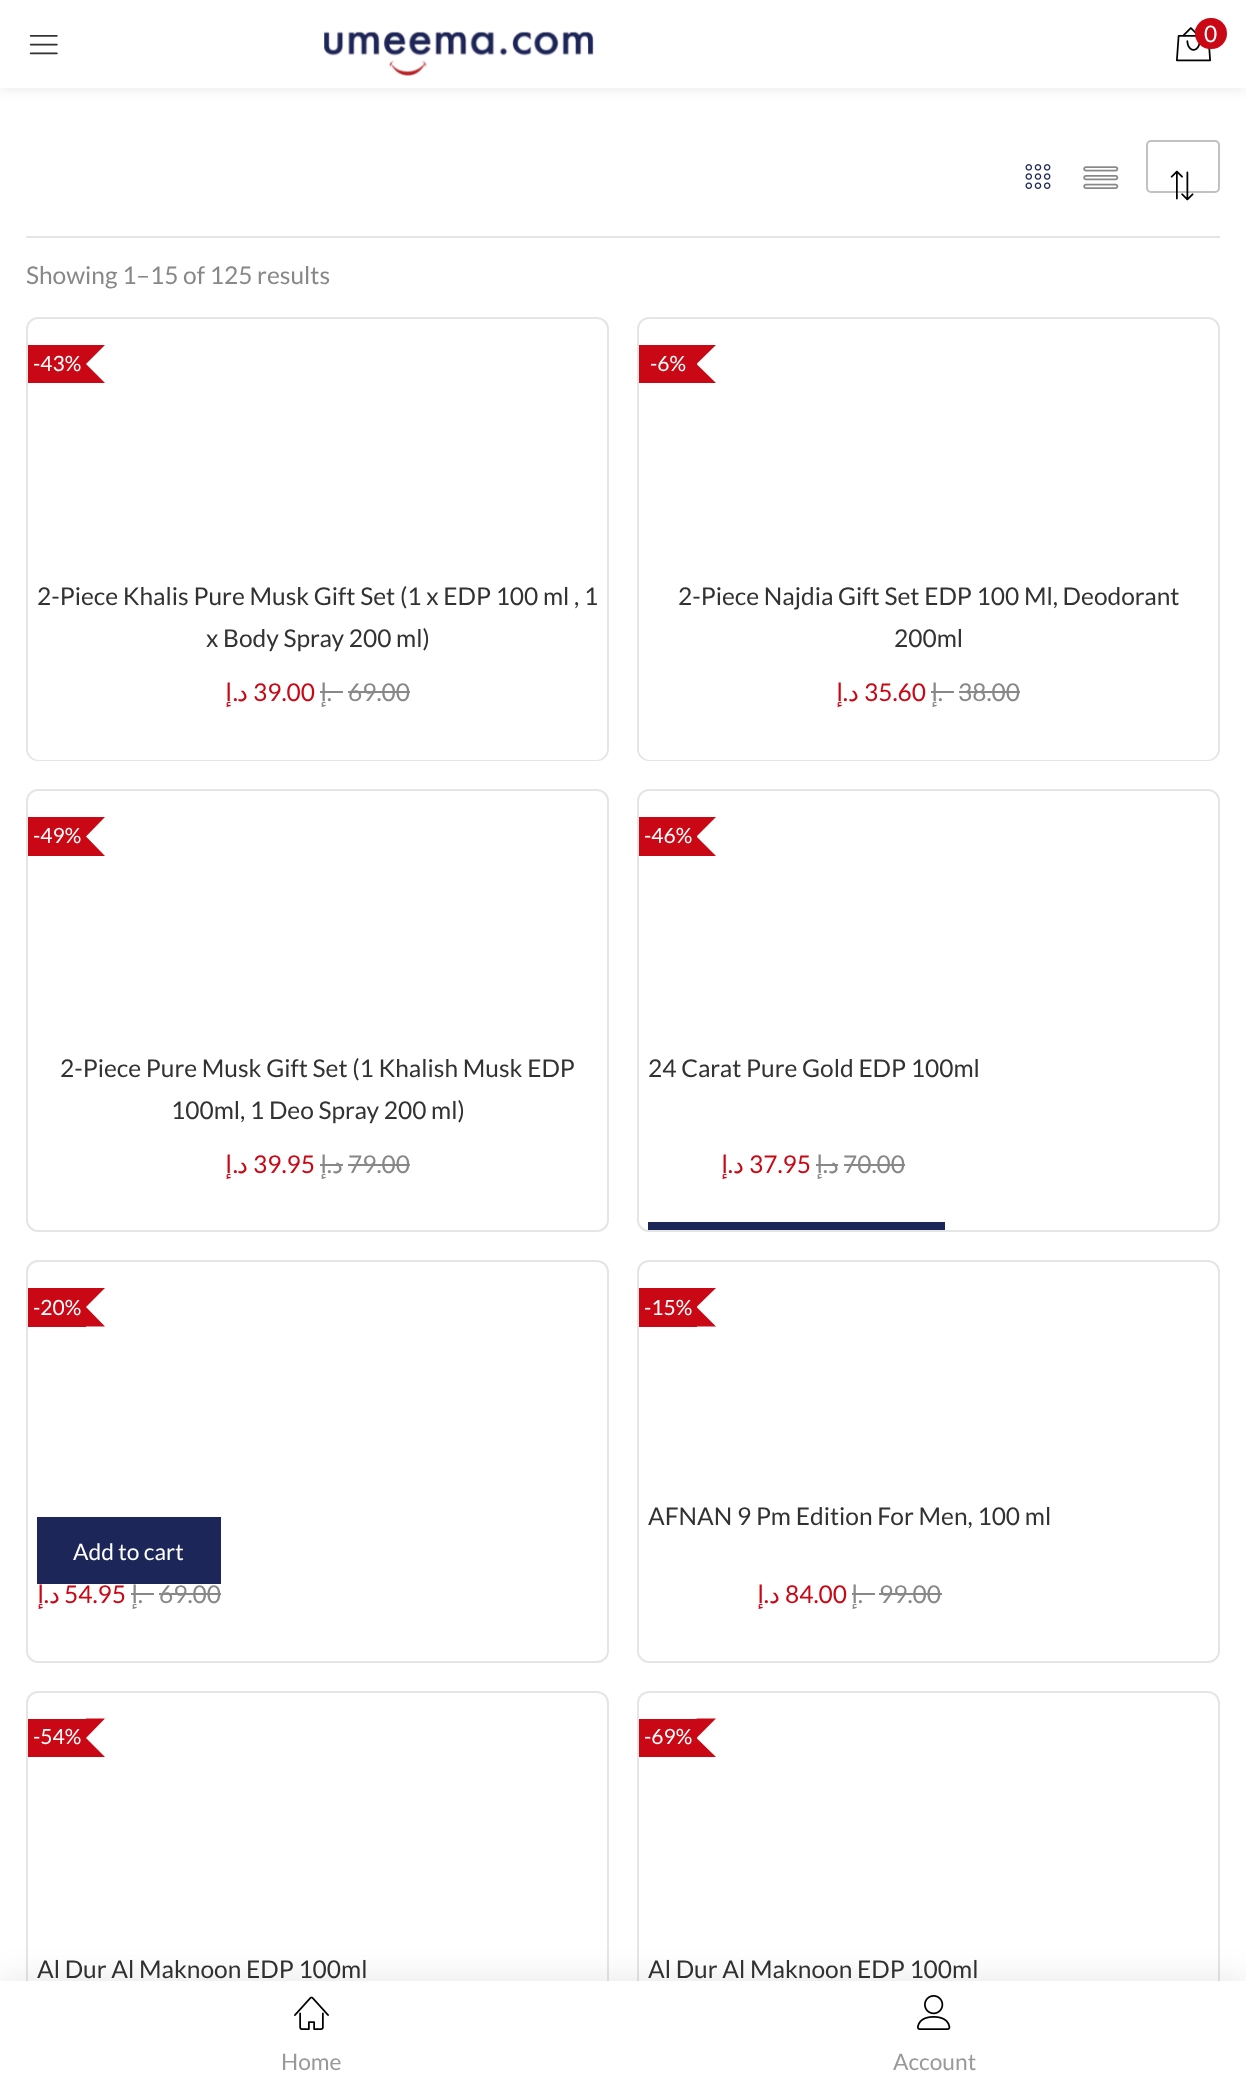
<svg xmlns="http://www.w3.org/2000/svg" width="1246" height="2091">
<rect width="100%" height="100%" fill="#fff"/>
<rect width="1246" height="88" fill="#0000001a" filter="blur(7px)"/>
<rect width="1246" height="88" fill="#fff"/>
<image x="29" y="35" width="29" height="20" href="media/1.png"/>
<image x="324" y="31" width="270" height="45" href="media/2.png"/>
<image x="1176" y="27" width="35" height="35" href="media/3.png"/>
<rect x="1195" y="18" width="32" height="31" rx="15.5" fill="#ca0815"/>
<text x="1204" y="42" style="font-family:Lato;font-size:22.75px;fill:#fff">0</text>
<image x="1025" y="164" width="26" height="25" href="media/4.png"/>
<image x="1083" y="166" width="36" height="23" href="media/5.png"/>
<rect x="1147" y="141" width="72" height="51" rx="4" fill="none" stroke="#c1c1c1" stroke-width="2"/>
<image x="1170" y="170" width="24" height="31" href="media/6.png"/>
<rect x="26" y="236" width="1194" height="2" fill="#e5e5e5"/>
<text x="26" y="284" style="font-family:Lato;font-size:24.5px;fill:#888">Showing 1–15 of 125 results</text>
<rect x="27" y="318" width="581" height="442" rx="11" fill="none" stroke="#e5e5e5" stroke-width="2"/>
<rect x="28" y="345" width="58" height="38" fill="#ca0815"/>
<text x="33" y="371" style="font-family:Lato;font-size:21px;fill:#fff">-43%</text>
<path d="M105 383h-19v-19zm-19-38h19l-19 19z" fill="#ca0815"/>
<path d="M28 555h579v194c0 6-5 11-11 11h-557c-6 0-11-5-11-11z" fill="#fff"/>
<text x="37" y="605" style="font-family:Lato;font-size:24.5px;fill:#323232">2-Piece Khalis Pure Musk Gift Set (1 x EDP 100 ml , 1</text>
<text x="206" y="647" style="font-family:Lato;font-size:24.5px;fill:#323232">x Body Spray 200 ml)</text>
<text x="232" y="701" style="font-family:DejaVu Sans;font-size:24.5px;direction:rtl;fill:#ca0815">إ</text>
<text x="238" y="701" style="font-family:Lato;font-size:24.5px;direction:rtl;fill:#ca0815">.</text>
<text x="248" y="701" style="font-family:DejaVu Sans;font-size:24.5px;direction:rtl;fill:#ca0815">د</text>
<text x="253" y="701" style="font-family:Lato;font-size:24.5px;fill:#ca0815">39.00</text>
<text x="327" y="701" style="font-family:DejaVu Sans;font-size:24.5px;direction:rtl;fill:#888">إ</text>
<rect x="320" y="691" width="23" height="2" fill="#888"/>
<text x="332" y="701" style="font-family:Lato;font-size:24.5px;direction:rtl;fill:#888">.</text>
<text x="348" y="701" style="font-family:Lato;font-size:24.5px;fill:#888">69.00</text>
<rect x="348" y="691" width="62" height="2" fill="#888"/>
<rect x="638" y="318" width="581" height="442" rx="11" fill="none" stroke="#e5e5e5" stroke-width="2"/>
<rect x="639" y="345" width="58" height="38" fill="#ca0815"/>
<text x="650" y="371" style="font-family:Lato;font-size:21px;fill:#fff">-6%</text>
<path d="M716 383h-19.5v-19zm-19.5-38h19.5l-19.5 19z" fill="#ca0815"/>
<path d="M639 555h579v194c0 6-5 11-11 11h-557c-6 0-11-5-11-11z" fill="#fff"/>
<text x="678" y="605" style="font-family:Lato;font-size:24.5px;fill:#323232">2-Piece Najdia Gift Set EDP 100 Ml, Deodorant</text>
<text x="894" y="647" style="font-family:Lato;font-size:24.5px;fill:#323232">200ml</text>
<text x="843" y="701" style="font-family:DejaVu Sans;font-size:24.5px;direction:rtl;fill:#ca0815">إ</text>
<text x="848" y="701" style="font-family:Lato;font-size:24.5px;direction:rtl;fill:#ca0815">.</text>
<text x="859" y="701" style="font-family:DejaVu Sans;font-size:24.5px;direction:rtl;fill:#ca0815">د</text>
<text x="864" y="701" style="font-family:Lato;font-size:24.5px;fill:#ca0815">35.60</text>
<text x="938" y="701" style="font-family:DejaVu Sans;font-size:24.5px;direction:rtl;fill:#888">إ</text>
<rect x="931" y="691" width="23" height="2" fill="#888"/>
<text x="943" y="701" style="font-family:Lato;font-size:24.5px;direction:rtl;fill:#888">.</text>
<text x="958" y="701" style="font-family:Lato;font-size:24.5px;fill:#888">38.00</text>
<rect x="959" y="691" width="61" height="2" fill="#888"/>
<rect x="27" y="790" width="581" height="441" rx="11" fill="none" stroke="#e5e5e5" stroke-width="2"/>
<rect x="28" y="817" width="58" height="39" fill="#ca0815"/>
<text x="33" y="843" style="font-family:Lato;font-size:21px;fill:#fff">-49%</text>
<path d="M105 856h-19v-19.5z" fill="#ca0815"/>
<path d="M86 817h19l-19 19.5z" fill="#ca0815"/>
<path d="M28 1026h579v193c0 6-5 11-11 11h-557c-6 0-11-5-11-11z" fill="#fff"/>
<text x="60" y="1077" style="font-family:Lato;font-size:24.5px;fill:#323232">2-Piece Pure Musk Gift Set (1 Khalish Musk EDP</text>
<text x="171" y="1119" style="font-family:Lato;font-size:24.5px;fill:#323232">100ml, 1 Deo Spray 200 ml)</text>
<text x="232" y="1173" style="font-family:DejaVu Sans;font-size:24.5px;direction:rtl;fill:#ca0815">إ</text>
<text x="238" y="1173" style="font-family:Lato;font-size:24.5px;direction:rtl;fill:#ca0815">.</text>
<text x="248" y="1173" style="font-family:DejaVu Sans;font-size:24.5px;direction:rtl;fill:#ca0815">د</text>
<text x="253" y="1173" style="font-family:Lato;font-size:24.5px;fill:#ca0815">39.95</text>
<text x="327" y="1173" style="font-family:DejaVu Sans;font-size:24.5px;direction:rtl;fill:#888">إ</text>
<rect x="320" y="1164" width="23" height="2" fill="#888"/>
<text x="332" y="1173" style="font-family:Lato;font-size:24.5px;direction:rtl;fill:#888">.</text>
<text x="343" y="1173" style="font-family:DejaVu Sans;font-size:24.5px;direction:rtl;fill:#888">د</text>
<text x="348" y="1173" style="font-family:Lato;font-size:24.5px;fill:#888">79.00</text>
<rect x="348" y="1164" width="62" height="2" fill="#888"/>
<rect x="638" y="790" width="581" height="441" rx="11" fill="none" stroke="#e5e5e5" stroke-width="2"/>
<rect x="639" y="817" width="58" height="39" fill="#ca0815"/>
<text x="644" y="843" style="font-family:Lato;font-size:21px;fill:#fff">-46%</text>
<path d="M716 856h-19.5v-19.5z" fill="#ca0815"/>
<path d="M696.5 817h19.5l-19.5 19.5z" fill="#ca0815"/>
<path d="M639 1026h350v204h-339c-6 0-11-5-11-11z" fill="#fff"/>
<rect x="648" y="1222" width="297" height="8" fill="#1d2659"/>
<text x="648" y="1077" style="font-family:Lato;font-size:24.5px;fill:#323232">24 Carat Pure Gold EDP 100ml</text>
<text x="728" y="1173" style="font-family:DejaVu Sans;font-size:24.5px;direction:rtl;fill:#ca0815">إ</text>
<text x="733" y="1173" style="font-family:Lato;font-size:24.5px;direction:rtl;fill:#ca0815">.</text>
<text x="744" y="1173" style="font-family:DejaVu Sans;font-size:24.5px;direction:rtl;fill:#ca0815">د</text>
<text x="749" y="1173" style="font-family:Lato;font-size:24.5px;fill:#ca0815">37.95</text>
<text x="823" y="1173" style="font-family:DejaVu Sans;font-size:24.5px;direction:rtl;fill:#888">إ</text>
<rect x="816" y="1164" width="22" height="2" fill="#888"/>
<text x="828" y="1173" style="font-family:Lato;font-size:24.5px;direction:rtl;fill:#888">.</text>
<text x="839" y="1173" style="font-family:DejaVu Sans;font-size:24.5px;direction:rtl;fill:#888">د</text>
<text x="843" y="1173" style="font-family:Lato;font-size:24.5px;fill:#888">70.00</text>
<rect x="844" y="1164" width="61" height="2" fill="#888"/>
<rect x="27" y="1261" width="581" height="401" rx="11" fill="none" stroke="#e5e5e5" stroke-width="2"/>
<rect x="28" y="1288" width="58" height="39" fill="#ca0815"/>
<text x="33" y="1315" style="font-family:Lato;font-size:21px;fill:#fff">-20%</text>
<path d="M105 1326.5h-19v-19.5zm-19-38.5h19l-19 19z" fill="#ca0815"/>
<path d="M28 1498h201v163h-190c-6 0-11-5-11-11z" fill="#fff"/>
<rect x="37" y="1517" width="184" height="67" fill="#1d2659"/>
<text x="73" y="1560" style="font-family:Lato;font-size:22.75px;fill:#fff">Add to cart</text>
<text x="44" y="1603" style="font-family:DejaVu Sans;font-size:24.5px;direction:rtl;fill:#ca0815">إ</text>
<text x="49" y="1603" style="font-family:Lato;font-size:24.5px;direction:rtl;fill:#ca0815">.</text>
<text x="60" y="1603" style="font-family:DejaVu Sans;font-size:24.5px;direction:rtl;fill:#ca0815">د</text>
<text x="64" y="1603" style="font-family:Lato;font-size:24.5px;fill:#ca0815">54.95</text>
<text x="138" y="1603" style="font-family:DejaVu Sans;font-size:24.5px;direction:rtl;fill:#888">إ</text>
<rect x="131" y="1593" width="23" height="2" fill="#888"/>
<text x="143" y="1603" style="font-family:Lato;font-size:24.5px;direction:rtl;fill:#888">.</text>
<text x="159" y="1603" style="font-family:Lato;font-size:24.5px;fill:#888">69.00</text>
<rect x="159" y="1593" width="62" height="2" fill="#888"/>
<rect x="638" y="1261" width="581" height="401" rx="11" fill="none" stroke="#e5e5e5" stroke-width="2"/>
<rect x="639" y="1288" width="58" height="39" fill="#ca0815"/>
<text x="644" y="1315" style="font-family:Lato;font-size:21px;fill:#fff">-15%</text>
<path d="M716 1326.5h-19.5v-19.5zm-19.5-38.5h19.5l-19.5 19z" fill="#ca0815"/>
<path d="M639 1474h420v187h-409c-6 0-11-5-11-11z" fill="#fff"/>
<text x="648" y="1525" style="font-family:Lato;font-size:24.5px;fill:#323232">AFNAN 9 Pm Edition For Men, 100 ml</text>
<text x="764" y="1603" style="font-family:DejaVu Sans;font-size:24.5px;direction:rtl;fill:#ca0815">إ</text>
<text x="769" y="1603" style="font-family:Lato;font-size:24.5px;direction:rtl;fill:#ca0815">.</text>
<text x="780" y="1603" style="font-family:DejaVu Sans;font-size:24.5px;direction:rtl;fill:#ca0815">د</text>
<text x="785" y="1603" style="font-family:Lato;font-size:24.5px;fill:#ca0815">84.00</text>
<text x="858" y="1603" style="font-family:DejaVu Sans;font-size:24.5px;direction:rtl;fill:#888">إ</text>
<rect x="852" y="1593" width="23" height="2" fill="#888"/>
<text x="863" y="1603" style="font-family:Lato;font-size:24.5px;direction:rtl;fill:#888">.</text>
<text x="879" y="1603" style="font-family:Lato;font-size:24.5px;fill:#888">99.00</text>
<rect x="879" y="1593" width="63" height="2" fill="#888"/>
<rect x="27" y="1692" width="581" height="398" rx="11" fill="none" stroke="#e5e5e5" stroke-width="2"/>
<rect x="28" y="1719" width="58" height="38" fill="#ca0815"/>
<text x="33" y="1744" style="font-family:Lato;font-size:21px;fill:#fff">-54%</text>
<path d="M105 1757h-19v-19zm-19-38.5h19l-19 19.5z" fill="#ca0815"/>
<text x="37" y="1978" style="font-family:Lato;font-size:24.5px;fill:#323232">Al Dur Al Maknoon EDP 100ml</text>
<rect x="638" y="1692" width="581" height="398" rx="11" fill="none" stroke="#e5e5e5" stroke-width="2"/>
<rect x="639" y="1719" width="58" height="38" fill="#ca0815"/>
<text x="644" y="1744" style="font-family:Lato;font-size:21px;fill:#fff">-69%</text>
<path d="M716 1757h-19.5v-19zm-19.5-38.5h19.5l-19.5 19.5z" fill="#ca0815"/>
<text x="648" y="1978" style="font-family:Lato;font-size:24.5px;fill:#323232">Al Dur Al Maknoon EDP 100ml</text>
<rect y="1981" width="1246" height="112" fill="#0000001a" filter="blur(17.5px)"/>
<rect y="1981" width="1246" height="110" fill="#fff"/>
<image x="294" y="1996" width="35" height="34" href="media/7.png"/>
<text x="281" y="2070" style="font-family:Lato;font-size:22.75px;fill:#999">Home</text>
<image x="917" y="1995" width="34" height="35" href="media/8.png"/>
<text x="893" y="2070" style="font-family:Lato;font-size:22.75px;fill:#999">Account</text>
</svg>
